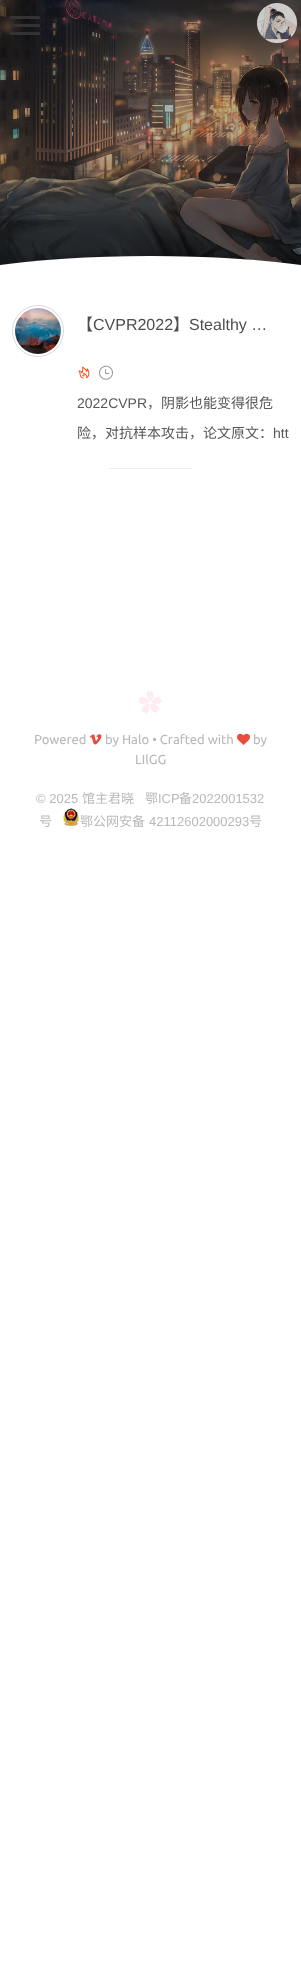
<svg xmlns="http://www.w3.org/2000/svg" width="301" height="1985">
<defs>
<clipPath id="clip1"><rect width="301" height="280"/></clipPath>
</defs>
<rect width="100%" height="100%" fill="#fff"/>
<image x="0" y="0" width="301" height="265" href="media/2.png"/>
<rect x="10" y="24" width="30" height="3" fill="#333"/>
<rect x="10" y="16" width="30" height="3" fill="#333"/>
<rect x="10" y="32" width="30" height="3" fill="#333"/>
<image x="257" y="3" width="40" height="40" href="media/1.png"/>
<g clip-path="url(#clip1)">
<ellipse cx="150.5" cy="291" rx="225.5" ry="35" fill="#fff"/>
</g>
<circle cx="38" cy="331" r="25.5" fill="none" stroke="#dadada"/>
<image x="15" y="308" width="46" height="46" href="media/3.png"/>
<text x="77" y="330" style="font-family:Noto Sans CJK SC;font-size:16px;fill:#504e4e">【</text>
<text x="93" y="330" style="font-family:Liberation Sans;font-size:16px;fill:#504e4e">CVPR2022</text>
<text x="173" y="330" style="font-family:Noto Sans CJK SC;font-size:16px;fill:#504e4e">】</text>
<text x="189" y="330" style="font-family:Liberation Sans;font-size:16px;fill:#504e4e">Stealthy …</text>
<image x="78" y="366" width="12" height="13" href="media/4.png"/>
<image x="99" y="365" width="14" height="15" href="media/5.png"/>
<text x="77" y="408" style="font-family:Liberation Sans;font-size:14px;fill:#575757">2022CVPR</text>
<text x="147" y="408" style="font-family:Noto Sans CJK SC;font-size:14px;fill:#575757">，阴影也能变得很危</text>
<text x="77" y="438" style="font-family:Noto Sans CJK SC;font-size:14px;fill:#575757">险，对抗样本攻击，论文原文：</text>
<text x="273" y="438" style="font-family:Liberation Sans;font-size:14px;fill:#575757">htt</text>
<rect x="109" y="468" width="83" height="1" fill="#efefef"/>
<image x="138" y="690" width="24" height="24" href="media/6.png"/>
<text x="34" y="744" style="font-family:Ubuntu;font-size:13px;fill:#b9b9b9">Powered</text>
<image x="89" y="734" width="13" height="11" href="media/7.png"/>
<text x="105" y="744" style="font-family:Ubuntu;font-size:13px;fill:#b9b9b9">by Halo • Crafted with</text>
<image x="237" y="733" width="13" height="12" href="media/8.png"/>
<text x="253" y="744" style="font-family:Ubuntu;font-size:13px;fill:#b9b9b9">by</text>
<text x="135" y="764" style="font-family:Ubuntu;font-size:13px;fill:#b9b9b9">LIlGG</text>
<text x="36" y="803" style="font-family:Liberation Sans;font-size:13px;fill:#b9b9b9">© 2025</text>
<text x="82" y="803" style="font-family:Noto Sans CJK SC;font-size:13px;fill:#b9b9b9">馆主君晓</text>
<text x="145" y="803" style="font-family:Noto Sans CJK SC;font-size:13px;fill:#b9b9b9">鄂</text>
<text x="158" y="803" style="font-family:Liberation Sans;font-size:13px;fill:#b9b9b9">ICP</text>
<text x="179" y="803" style="font-family:Noto Sans CJK SC;font-size:13px;fill:#b9b9b9">备</text>
<text x="192" y="803" style="font-family:Liberation Sans;font-size:13px;fill:#b9b9b9">2022001532</text>
<text x="39" y="826" style="font-family:Noto Sans CJK SC;font-size:13px;fill:#b9b9b9">号</text>
<image x="63" y="808" width="16" height="18" href="media/9.png"/>
<text x="80" y="826" style="font-family:Noto Sans CJK SC;font-size:13px;fill:#b9b9b9">鄂公网安备</text>
<text x="149" y="826" style="font-family:Liberation Sans;font-size:13px;fill:#b9b9b9">42112602000293</text>
<text x="249" y="826" style="font-family:Noto Sans CJK SC;font-size:13px;fill:#b9b9b9">号</text>
</svg>
